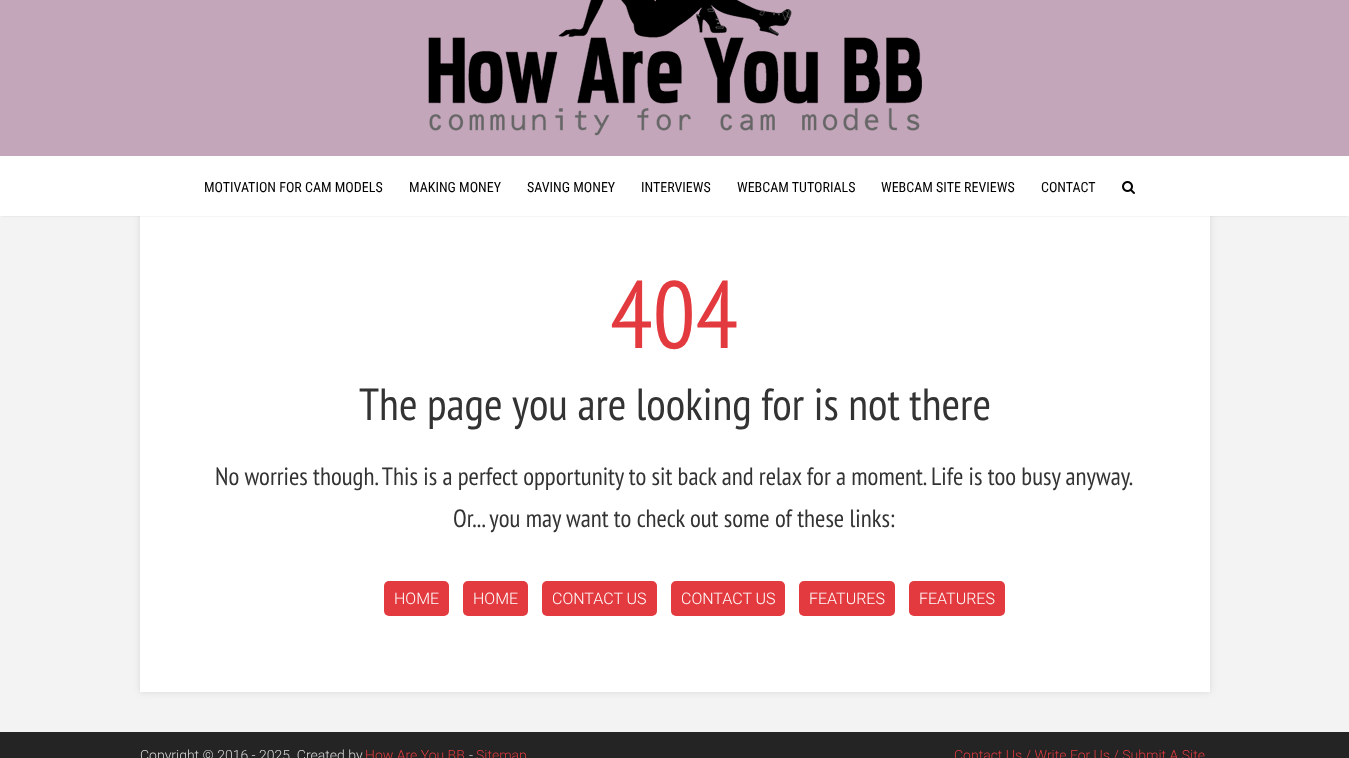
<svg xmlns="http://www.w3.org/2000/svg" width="1349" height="758">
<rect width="100%" height="100%" fill="#f3f3f3"/>
<rect x="140" y="-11" width="1070" height="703" fill="#0000001a" filter="blur(3.5px)"/>
<rect x="140" y="216" width="1070" height="476" fill="#fff"/>
<rect x="2" y="-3" width="1345" height="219" fill="#0000001a" filter="blur(1px)"/>
<rect width="1349" height="156" fill="#c4a6bb"/>
<image x="428" y="0" width="494" height="136" href="media/1.png"/>
<rect y="156" width="1349" height="60" fill="#fff"/>
<text x="204" y="192" style="font-family:Roboto Condensed;font-size:14px;fill:#020202">MOTIVATION FOR CAM MODELS</text>
<text x="409" y="192" style="font-family:Roboto Condensed;font-size:14px;fill:#020202">MAKING MONEY</text>
<text x="527" y="192" style="font-family:Roboto Condensed;font-size:14px;fill:#020202">SAVING MONEY</text>
<text x="641" y="192" style="font-family:Roboto Condensed;font-size:14px;fill:#020202">INTERVIEWS</text>
<text x="737" y="192" style="font-family:Roboto Condensed;font-size:14px;fill:#020202">WEBCAM TUTORIALS</text>
<text x="881" y="192" style="font-family:Roboto Condensed;font-size:14px;fill:#020202">WEBCAM SITE REVIEWS</text>
<text x="1041" y="192" style="font-family:Roboto Condensed;font-size:14px;fill:#020202">CONTACT</text>
<image x="1122" y="181" width="13" height="13" href="media/2.png"/>
<text x="610" y="348" style="font-family:PT Sans Narrow;font-size:95px;fill:#e23a3e">404</text>
<text x="359" y="420" style="font-family:PT Sans Narrow;font-size:45px;fill:#333">The page you are looking for is not there</text>
<text x="215" y="485" style="font-family:PT Sans Narrow;font-size:25px;fill:#333">No worries though. This is a perfect opportunity to sit back and relax for a moment. Life is too busy anyway.</text>
<text x="453" y="527" style="font-family:PT Sans Narrow;font-size:25px;fill:#333">Or... you may want to check out some of these links:</text>
<rect x="384" y="581" width="65" height="35" rx="5" fill="#e23a3e"/>
<text x="394" y="604" style="font-family:Roboto;font-size:16px;font-weight:300;fill:#fff">HOME</text>
<rect x="463" y="581" width="65" height="35" rx="5" fill="#e23a3e"/>
<text x="473" y="604" style="font-family:Roboto;font-size:16px;font-weight:300;fill:#fff">HOME</text>
<rect x="542" y="581" width="115" height="35" rx="5" fill="#e23a3e"/>
<text x="552" y="604" style="font-family:Roboto;font-size:16px;font-weight:300;fill:#fff">CONTACT US</text>
<rect x="671" y="581" width="114" height="35" rx="5" fill="#e23a3e"/>
<text x="681" y="604" style="font-family:Roboto;font-size:16px;font-weight:300;fill:#fff">CONTACT US</text>
<rect x="799" y="581" width="96" height="35" rx="5" fill="#e23a3e"/>
<text x="809" y="604" style="font-family:Roboto;font-size:16px;font-weight:300;fill:#fff">FEATURES</text>
<rect x="909" y="581" width="96" height="35" rx="5" fill="#e23a3e"/>
<text x="919" y="604" style="font-family:Roboto;font-size:16px;font-weight:300;fill:#fff">FEATURES</text>
<rect y="732" width="1349" height="26" fill="#242424"/>
<text x="140" y="760" style="font-family:Roboto;font-size:14px;font-weight:300;fill:#d8d8d8">Copyright © 2016 - 2025. Created by</text>
<text x="365" y="760" style="font-family:Roboto;font-size:14px;font-weight:300;fill:#e23a3e">How Are You BB</text>
<text x="469" y="760" style="font-family:Roboto;font-size:14px;font-weight:300;fill:#d8d8d8">-</text>
<text x="476" y="760" style="font-family:Roboto;font-size:14px;font-weight:300;fill:#e23a3e">Sitemap</text>
<text x="954" y="760" style="font-family:Roboto;font-size:14px;font-weight:300;fill:#e23a3e">Contact Us / Write For Us / Submit A Site</text>
</svg>
